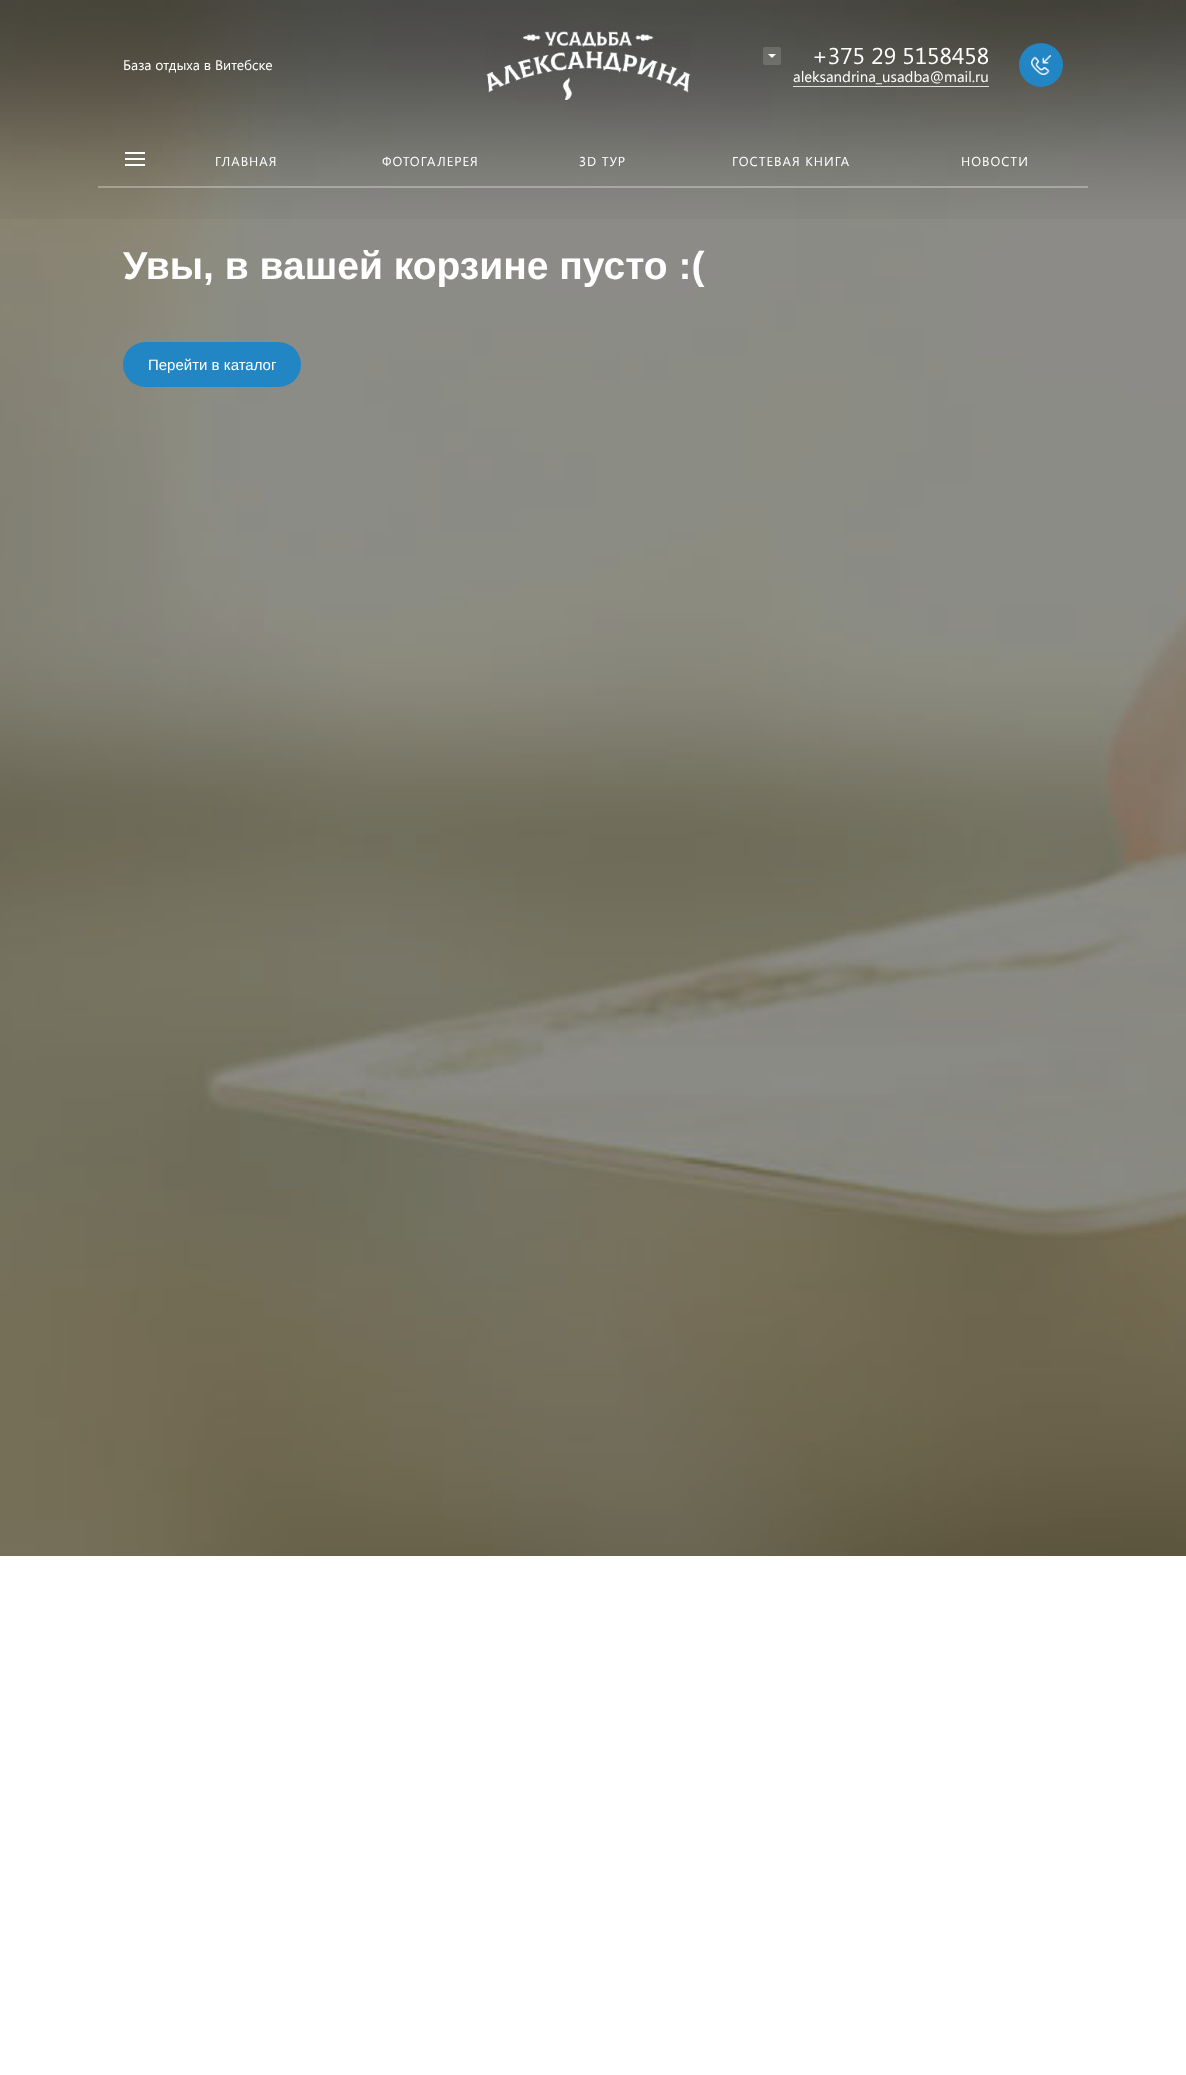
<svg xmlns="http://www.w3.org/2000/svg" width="1186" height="2075">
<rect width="100%" height="100%" fill="#fff"/>
<image x="0" y="0" width="1186" height="1556" href="media/4.png"/>
<image x="0" y="0" width="1186" height="219" href="media/5.png"/>
<text x="123" y="70" style="font-family:Segoe UI;font-size:14px;fill:#fff">База отдыха в Витебске</text>
<image x="486" y="31" width="205" height="69" href="media/1.png"/>
<rect x="763" y="47" width="18" height="18" rx="2" fill="#ffffff26"/>
<image x="768" y="54" width="8" height="4" href="media/2.png"/>
<text x="812" y="64" style="font-family:Segoe UI;font-size:23px;fill:#fff">+375 29 5158458</text>
<text x="793" y="82" style="font-family:Segoe UI;font-size:15px;fill:#fff">aleksandrina_usadba@mail.ru</text>
<rect x="793" y="86" width="196" height="1" fill="#dedede"/>
<circle cx="1041" cy="65" r="22" fill="#2285c4"/>
<image x="1031" y="55" width="20" height="20" href="media/3.png"/>
<rect x="98" y="186" width="990" height="2" fill="#ffffff4d"/>
<rect x="125" y="152" width="20" height="2" fill="#fff"/>
<rect x="125" y="158" width="20" height="2" fill="#fff"/>
<rect x="125" y="164" width="20" height="2" fill="#fff"/>
<text x="215" y="166" style="font-family:Segoe UI;font-size:13px;letter-spacing:1px;fill:#fff">ГЛАВНАЯ</text>
<text x="382" y="166" style="font-family:Segoe UI;font-size:13px;letter-spacing:1px;fill:#fff">ФОТОГАЛЕРЕЯ</text>
<text x="579" y="166" style="font-family:Segoe UI;font-size:13px;letter-spacing:1px;fill:#fff">3D ТУР</text>
<text x="732" y="166" style="font-family:Segoe UI;font-size:13px;letter-spacing:1px;fill:#fff">ГОСТЕВАЯ КНИГА</text>
<text x="961" y="166" style="font-family:Segoe UI;font-size:13px;letter-spacing:1px;fill:#fff">НОВОСТИ</text>
<text x="123" y="279" style="font-family:Liberation Sans;font-size:39px;font-weight:bold;fill:#fff">Увы, в вашей корзине пусто :(</text>
<rect x="123" y="342" width="178" height="45" rx="22.5" fill="#2285c4"/>
<text x="148" y="370" style="font-family:Liberation Sans;font-size:15px;fill:#fff">Перейти в каталог</text>
</svg>
